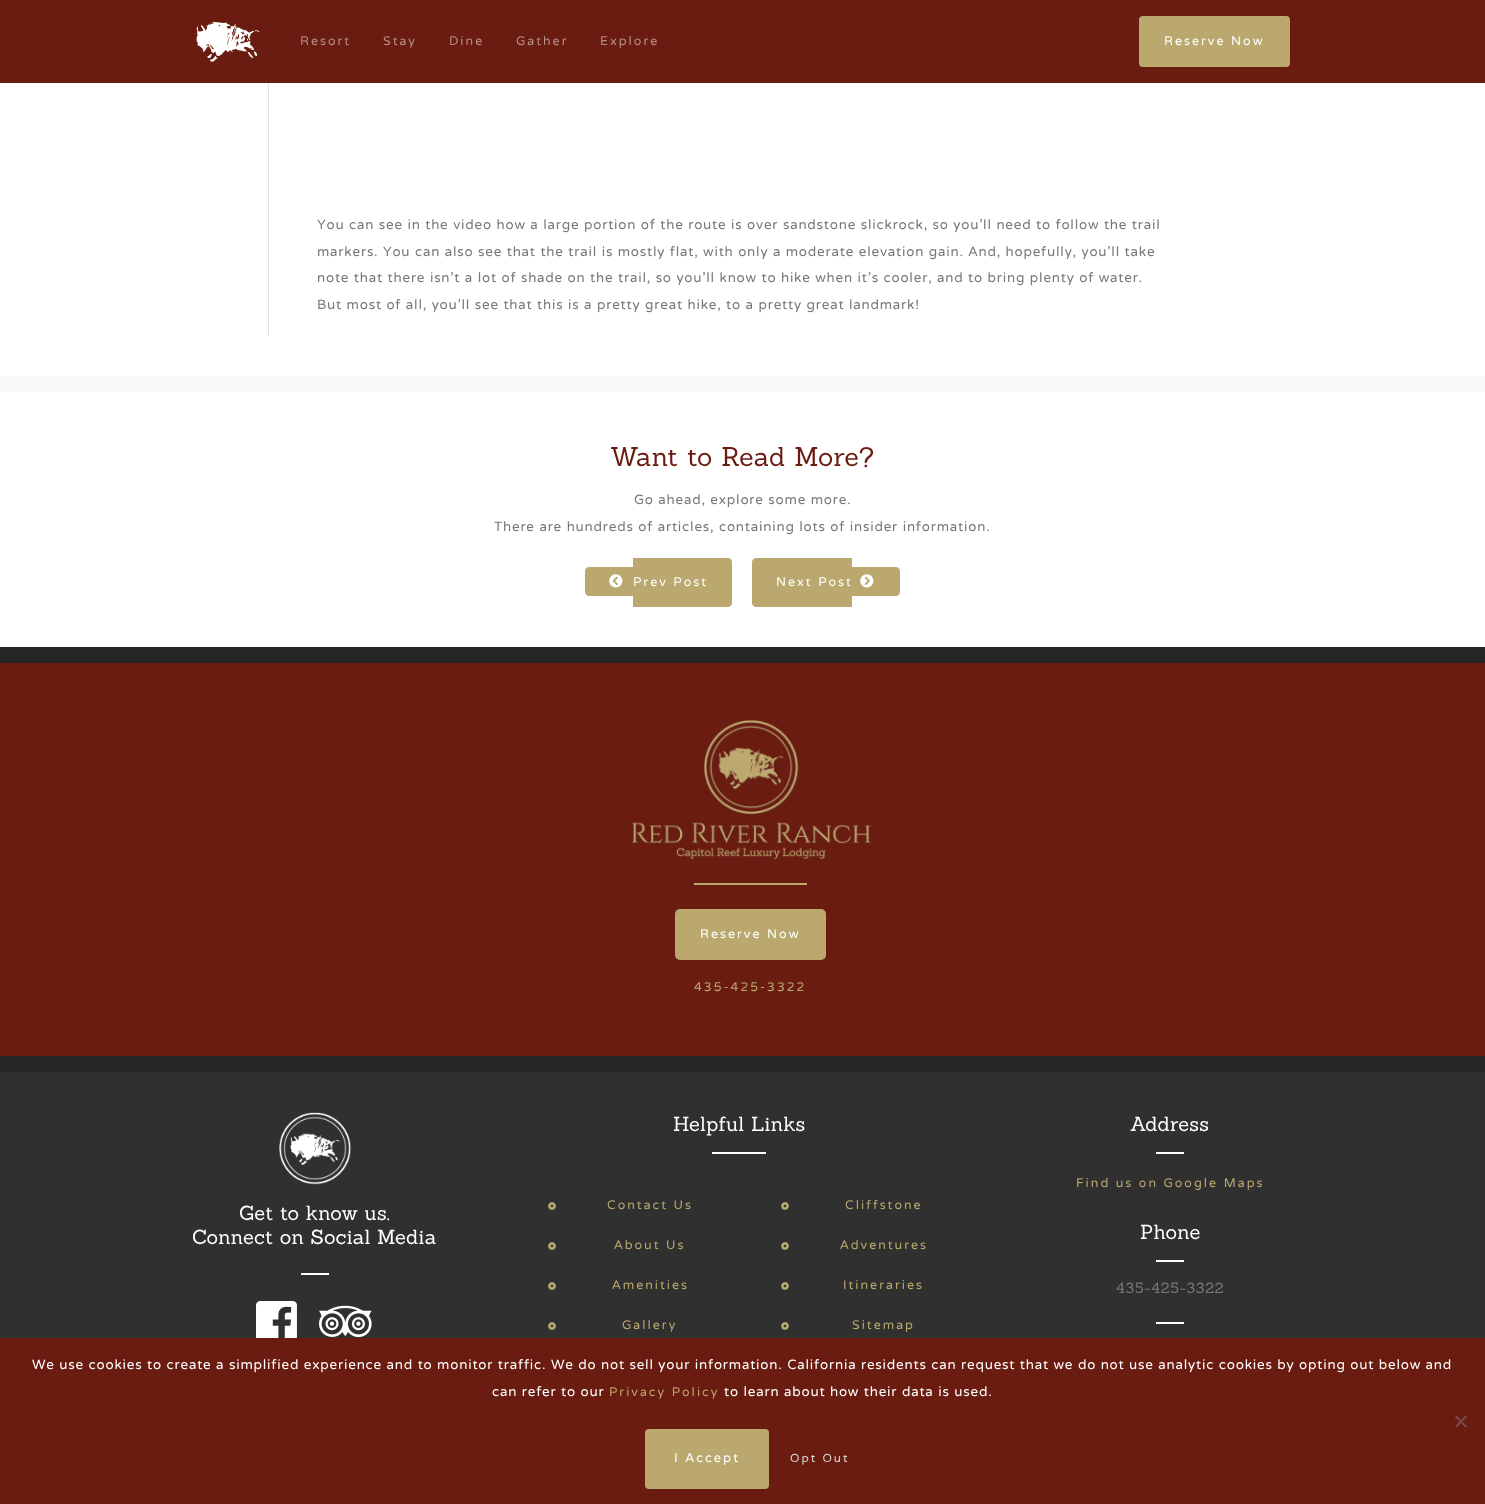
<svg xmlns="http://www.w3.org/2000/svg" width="1485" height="1504">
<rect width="100%" height="100%" fill="#fff"/>
<rect width="1485" height="83" fill="#6b1c11"/>
<image x="196" y="22" width="64" height="40" href="media/1.png"/>
<text x="300" y="45" style="font-family:NTR;font-size:15.6px;letter-spacing:2px;fill:#b58e88">Resort</text>
<text x="383" y="45" style="font-family:NTR;font-size:15.6px;letter-spacing:2px;fill:#b58e88">Stay</text>
<text x="449" y="45" style="font-family:NTR;font-size:15.6px;letter-spacing:2px;fill:#b58e88">Dine</text>
<text x="516" y="45" style="font-family:NTR;font-size:15.6px;letter-spacing:2px;fill:#b58e88">Gather</text>
<text x="600" y="45" style="font-family:NTR;font-size:15.6px;letter-spacing:2px;fill:#b58e88">Explore</text>
<rect x="1139" y="16" width="151" height="51" rx="4" fill="#baa86e"/>
<text x="1164" y="45" style="font-family:NTR;font-size:15.6px;letter-spacing:2px;fill:#fff">Reserve Now</text>
<rect x="268" y="83" width="1" height="253" fill="#dee2e6"/>
<text x="317" y="229" style="font-family:NTR;font-size:16.8px;letter-spacing:0.8px;fill:#787878">You can see in the video how a large portion of the route is over sandstone slickrock, so you’ll need to follow the trail</text>
<text x="317" y="256" style="font-family:NTR;font-size:16.8px;letter-spacing:0.8px;fill:#787878">markers. You can also see that the trail is mostly flat, with only a moderate elevation gain. And, hopefully, you’ll take</text>
<text x="317" y="282" style="font-family:NTR;font-size:16.8px;letter-spacing:0.8px;fill:#787878">note that there isn’t a lot of shade on the trail, so you’ll know to hike when it’s cooler, and to bring plenty of water.</text>
<text x="317" y="309" style="font-family:NTR;font-size:16.8px;letter-spacing:0.8px;fill:#787878">But most of all, you’ll see that this is a pretty great hike, to a pretty great landmark!</text>
<rect y="376" width="1485" height="16" fill="#f9f9f9"/>
<text x="610" y="466" style="font-family:Sanchez;font-size:26.4px;letter-spacing:0.4px;fill:#6b1c11">Want to Read More?</text>
<text x="634" y="504" style="font-family:NTR;font-size:16.8px;letter-spacing:0.8px;fill:#787878">Go ahead, explore some more.</text>
<text x="494" y="531" style="font-family:NTR;font-size:16.8px;letter-spacing:0.8px;fill:#787878">There are hundreds of articles, containing lots of insider information.</text>
<path d="M589 567h44v29h-44c-2 0-4-2-4-4v-21c0-2 2-4 4-4z" fill="#baa86e"/>
<path d="M633 558h95c2 0 4 2 4 4v41c0 2-2 4-4 4h-95z" fill="#baa86e"/>
<image x="609" y="574" width="14" height="14" href="media/2.png"/>
<text x="633" y="586" style="font-family:NTR;font-size:15.6px;letter-spacing:2px;fill:#fff">Prev Post</text>
<path d="M756 558h96v49h-96c-2 0-4-2-4-4v-41c0-2 2-4 4-4z" fill="#baa86e"/>
<path d="M852 567h44c2 0 4 2 4 4v21c0 2-2 4-4 4h-44z" fill="#baa86e"/>
<text x="776" y="586" style="font-family:NTR;font-size:15.6px;letter-spacing:2px;fill:#fff">Next Post</text>
<image x="860" y="574" width="14" height="14" href="media/3.png"/>
<rect y="647" width="1485" height="16" fill="#242524"/>
<rect y="663" width="1485" height="393" fill="#6b1c11"/>
<image x="631" y="720" width="240" height="139" href="media/4.png"/>
<rect x="694" y="883" width="113" height="2" fill="#baa86e"/>
<rect x="675" y="909" width="151" height="51" rx="5" fill="#baa86e"/>
<text x="700" y="938" style="font-family:NTR;font-size:15.6px;letter-spacing:2px;fill:#fff">Reserve Now</text>
<text x="694" y="991" style="font-family:NTR;font-size:15.6px;letter-spacing:2px;fill:#baa86e">435-425-3322</text>
<rect y="1056" width="1485" height="16" fill="#242524"/>
<rect y="1072" width="1485" height="266" fill="#2f302f"/>
<image x="279" y="1112" width="72" height="73" href="media/5.png"/>
<text x="239" y="1220" style="font-family:Sanchez;font-size:20px;letter-spacing:0.25px;fill:#fff">Get to know us.</text>
<text x="192" y="1244" style="font-family:Sanchez;font-size:20px;letter-spacing:0.25px;fill:#fff">Connect on Social Media</text>
<rect x="301" y="1273" width="28" height="2" fill="#fff"/>
<image x="256" y="1301" width="41" height="37" href="media/6.png"/>
<image x="319" y="1305" width="53" height="33" href="media/7.png"/>
<text x="673" y="1131" style="font-family:Sanchez;font-size:20px;letter-spacing:0.25px;fill:#fff">Helpful Links</text>
<rect x="712" y="1152" width="54" height="2" fill="#fff"/>
<image x="548" y="1202" width="8" height="8" href="media/8.png"/>
<text x="607" y="1209" style="font-family:NTR;font-size:15.6px;letter-spacing:2px;fill:#baa86e">Contact Us</text>
<image x="548" y="1242" width="8" height="8" href="media/8.png"/>
<text x="614" y="1249" style="font-family:NTR;font-size:15.6px;letter-spacing:2px;fill:#baa86e">About Us</text>
<image x="548" y="1282" width="8" height="8" href="media/8.png"/>
<text x="612" y="1289" style="font-family:NTR;font-size:15.6px;letter-spacing:2px;fill:#baa86e">Amenities</text>
<image x="548" y="1322" width="8" height="8" href="media/8.png"/>
<text x="622" y="1329" style="font-family:NTR;font-size:15.6px;letter-spacing:2px;fill:#baa86e">Gallery</text>
<image x="781" y="1202" width="8" height="8" href="media/8.png"/>
<text x="845" y="1209" style="font-family:NTR;font-size:15.6px;letter-spacing:2px;fill:#baa86e">Cliffstone</text>
<image x="781" y="1242" width="8" height="8" href="media/8.png"/>
<text x="840" y="1249" style="font-family:NTR;font-size:15.6px;letter-spacing:2px;fill:#baa86e">Adventures</text>
<image x="781" y="1282" width="8" height="8" href="media/8.png"/>
<text x="843" y="1289" style="font-family:NTR;font-size:15.6px;letter-spacing:2px;fill:#baa86e">Itineraries</text>
<image x="781" y="1322" width="8" height="8" href="media/8.png"/>
<text x="852" y="1329" style="font-family:NTR;font-size:15.6px;letter-spacing:2px;fill:#baa86e">Sitemap</text>
<text x="1130" y="1131" style="font-family:Sanchez;font-size:20px;letter-spacing:0.25px;fill:#fff">Address</text>
<rect x="1156" y="1152" width="28" height="2" fill="#fff"/>
<text x="1076" y="1187" style="font-family:NTR;font-size:15.6px;letter-spacing:2px;fill:#baa86e">Find us on Google Maps</text>
<text x="1140" y="1239" style="font-family:Sanchez;font-size:20px;letter-spacing:0.25px;fill:#fff">Phone</text>
<rect x="1156" y="1260" width="28" height="2" fill="#fff"/>
<text x="1116" y="1293" style="font-family:Sanchez;font-size:14.5px;letter-spacing:0.8px;fill:#787878">435-425-3322</text>
<rect x="1156" y="1322" width="28" height="2" fill="#fff"/>
<rect y="1338" width="1485" height="166" fill="#6b1c11"/>
<text x="32" y="1369" style="font-family:NTR;font-size:16.8px;letter-spacing:0.8px;fill:#fff">We use cookies to create a simplified experience and to monitor traffic. We do not sell your information. California residents can request that we do not use analytic cookies by opting out below and</text>
<text x="492" y="1396" style="font-family:NTR;font-size:16.8px;letter-spacing:0.8px;fill:#fff">can refer to our</text>
<text x="609" y="1396" style="font-family:NTR;font-size:15.6px;letter-spacing:2px;fill:#baa86e">Privacy Policy</text>
<text x="724" y="1396" style="font-family:NTR;font-size:16.8px;letter-spacing:0.8px;fill:#fff">to learn about how their data is used.</text>
<path d="M1465.5 1415.5l1.5 1.5l-10.5 10.5l-1.5-1z" fill="#764e49"/>
<path d="M1455 1417l1.5-1.5l10.5 11l-1.5 1z" fill="#764e49"/>
<rect x="645" y="1429" width="124" height="60" rx="4" fill="#baa86e"/>
<text x="674" y="1462" style="font-family:NTR;font-size:16px;letter-spacing:2px;fill:#fff">I Accept</text>
<text x="790" y="1462" style="font-family:NTR;font-size:14.5px;letter-spacing:2px;fill:#d9d9d9">Opt Out</text>
</svg>
